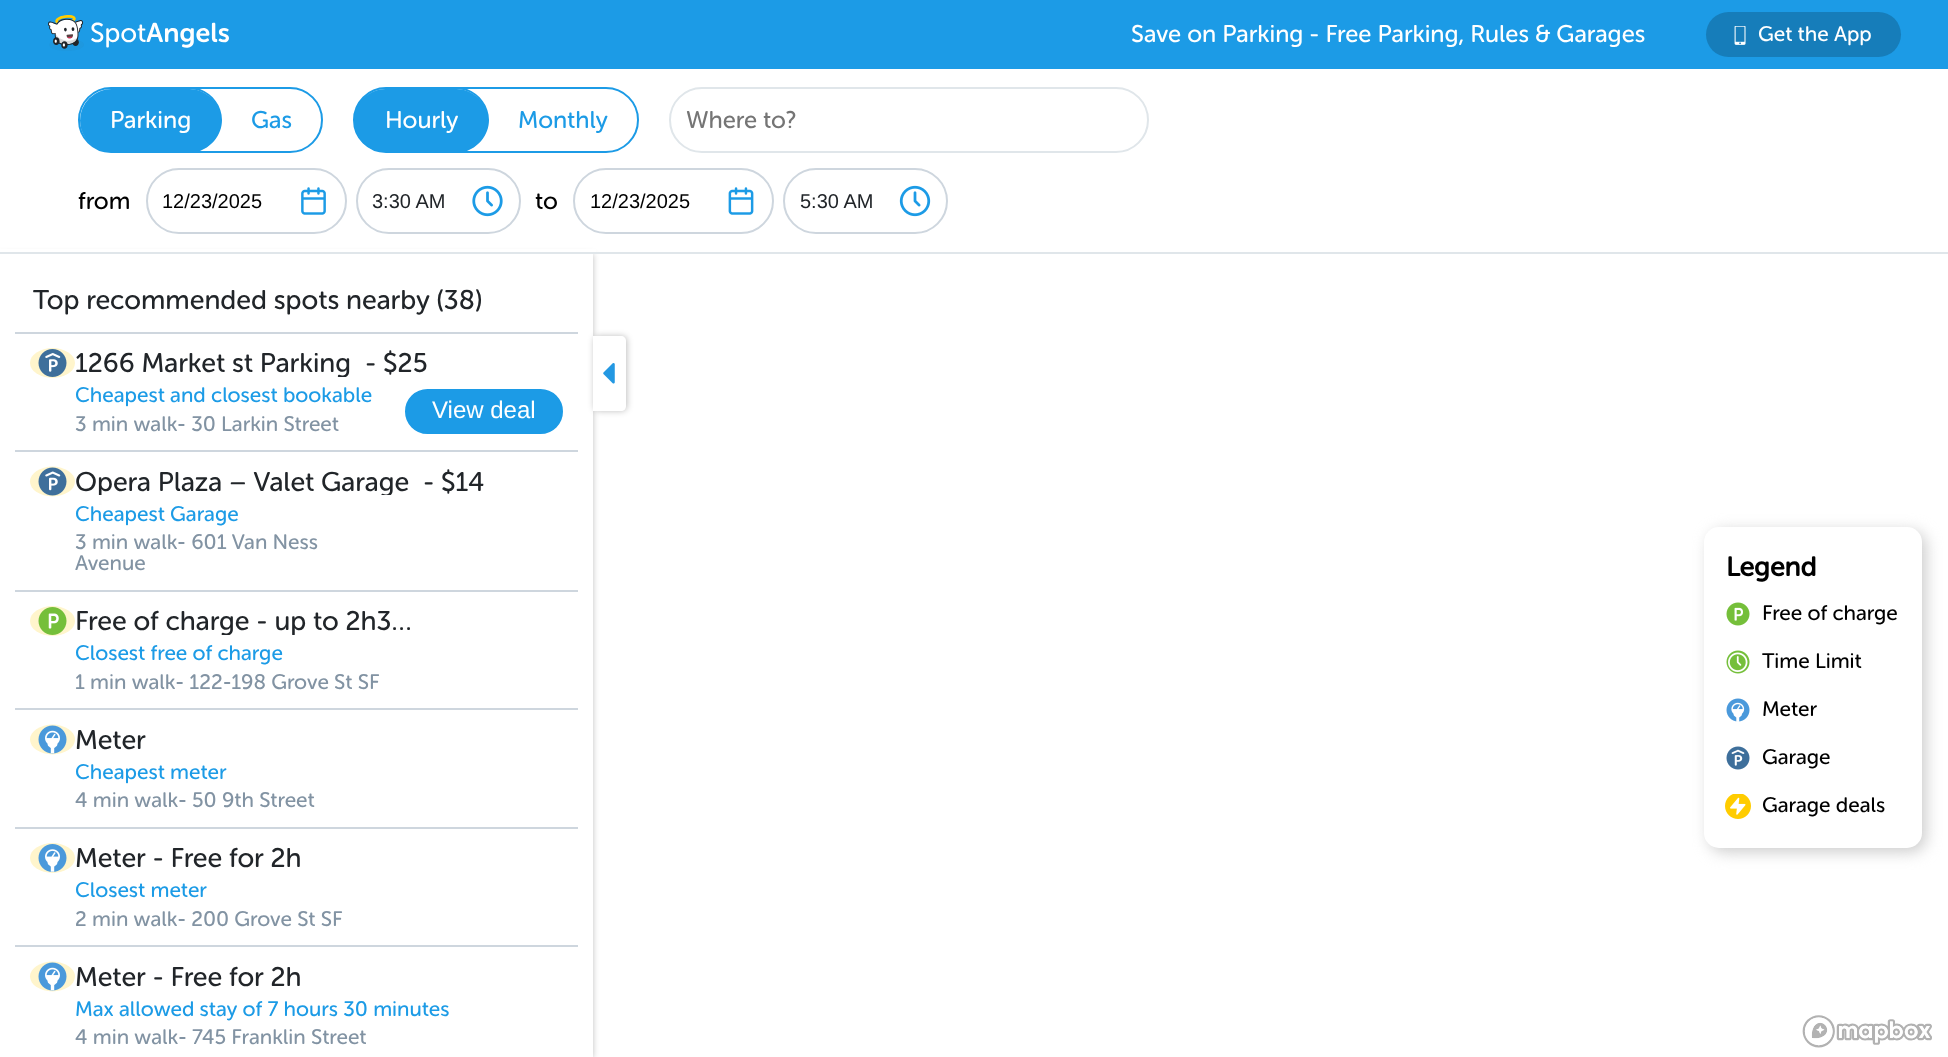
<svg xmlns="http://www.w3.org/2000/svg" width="1948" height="1057">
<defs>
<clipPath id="clip1"><rect x="75" y="350" width="276" height="27"/></clipPath>
<clipPath id="clip2"><rect x="75" y="468" width="335" height="27"/></clipPath>
<clipPath id="clip3"><rect x="75" y="608" width="345" height="27"/></clipPath>
</defs>
<rect width="100%" height="100%" fill="#fff"/>
<rect width="1948" height="69" fill="#1c9be6"/>
<image x="48" y="15" width="181" height="36" href="media/1.png"/>
<text x="1131" y="42" style="font-family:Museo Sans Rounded;font-size:24px;fill:#fff">Save on Parking - Free Parking, Rules &amp; Garages</text>
<rect x="1706" y="12" width="195" height="45" rx="22.5" fill="#167dba"/>
<image x="1734" y="26" width="12" height="19" href="media/2.png"/>
<text x="1758" y="41" style="font-family:Museo Sans Rounded;font-size:21px;fill:#fff">Get the App</text>
<rect y="254" width="593" height="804" fill="#00000040" filter="blur(3px)"/>
<rect y="249" width="596" height="3" fill="#fff"/>
<rect y="252" width="1948" height="2" fill="#e0e6ea"/>
<rect x="79" y="88" width="243" height="64" rx="32" fill="none" stroke="#1c9be6" stroke-width="2"/>
<path d="M200 89c13 5 22 17 22 31c0 15-11 28-25 32h-85c-18 0-32-14-32-32c0 17 14 31 31 31h78c17 0 31-14 31-31c0-17-14-31-31-31z" fill="#1c9be6"/>
<rect x="80" y="89" width="141" height="63" rx="31.5" fill="#1c9be6"/>
<text x="110" y="128" style="font-family:Museo Sans Rounded;font-size:24px;fill:#fff">Parking</text>
<text x="251" y="128" style="font-family:Museo Sans Rounded;font-size:24px;fill:#1c9be6">Gas</text>
<rect x="354" y="88" width="284" height="64" rx="32" fill="none" stroke="#1c9be6" stroke-width="2"/>
<path d="M386 89c-17 0-31 14-31 31c0 17 14 31 31 31h70c17 0 31-14 31-31c0-17-14-31-31-31h11c13 5 22 17 22 31c0 15-11 28-25 32h-78c-18 0-32-14-32-32c0-17 14-31 32-31z" fill="#1c9be6"/>
<rect x="354" y="89" width="134" height="63" rx="31.5" fill="#1c9be6"/>
<text x="385" y="128" style="font-family:Museo Sans Rounded;font-size:24px;fill:#fff">Hourly</text>
<text x="518" y="128" style="font-family:Museo Sans Rounded;font-size:24px;fill:#1c9be6">Monthly</text>
<rect x="670" y="88" width="478" height="64" rx="32" fill="none" stroke="#e0e6ea" stroke-width="2"/>
<text x="686" y="128" style="font-family:Museo Sans Rounded;font-size:24px;fill:#757575">Where to?</text>
<text x="78" y="209" style="font-family:Museo Sans Rounded;font-size:24px;fill:#000">from</text>
<image x="301" y="187" width="25" height="28" href="media/3.png"/>
<rect x="147" y="169" width="199" height="64" rx="32" fill="none" stroke="#ced6de" stroke-width="2"/>
<text x="162" y="208" style="font-family:Liberation Sans;font-size:20px;fill:#000">12/23/2025</text>
<image x="472" y="185" width="31" height="32" href="media/4.png"/>
<rect x="357" y="169" width="163" height="64" rx="32" fill="none" stroke="#ced6de" stroke-width="2"/>
<text x="372" y="208" style="font-family:Liberation Sans;font-size:20px;fill:#212529">3:30 AM</text>
<text x="535" y="209" style="font-family:Museo Sans Rounded;font-size:24px;fill:#000">to</text>
<image x="728" y="187" width="26" height="28" href="media/5.png"/>
<rect x="574" y="169" width="199" height="64" rx="32" fill="none" stroke="#ced6de" stroke-width="2"/>
<text x="590" y="208" style="font-family:Liberation Sans;font-size:20px;fill:#000">12/23/2025</text>
<image x="899" y="185" width="32" height="32" href="media/6.png"/>
<rect x="784" y="169" width="163" height="64" rx="32" fill="none" stroke="#ced6de" stroke-width="2"/>
<text x="800" y="208" style="font-family:Liberation Sans;font-size:20px;fill:#212529">5:30 AM</text>
<rect y="254" width="593" height="803" fill="#fff"/>
<text x="33" y="309" style="font-family:Museo Sans Rounded;font-size:27px;fill:#212529">Top recommended spots nearby (38)</text>
<rect x="15" y="332" width="563" height="2" fill="#ced6de"/>
<rect x="15" y="450" width="563" height="2" fill="#ced6de"/>
<ellipse cx="52.5" cy="363" rx="22.5" ry="15" fill="#fff5cc"/>
<image x="38" y="349" width="29" height="28" href="media/7.png"/>
<g clip-path="url(#clip1)">
<text x="75" y="372" style="font-family:Museo Sans Rounded;font-size:27px;fill:#212529">1266 Market st Parking</text>
</g>
<text x="365" y="372" style="font-family:Museo Sans Rounded;font-size:27px;fill:#212529">- $25</text>
<text x="75" y="402" style="font-family:Museo Sans Rounded;font-size:21px;fill:#1c9be6">Cheapest and closest bookable</text>
<rect x="406" y="390" width="156" height="43" rx="21.5" fill="#1c9be6" stroke="#1c9be6" stroke-width="2"/>
<text x="432" y="418" style="font-family:Liberation Sans;font-size:24px;fill:#fff">View deal</text>
<text x="75" y="431" style="font-family:Museo Sans Rounded;font-size:21px;fill:#8293a3">3 min walk- 30 Larkin Street</text>
<rect x="15" y="590" width="563" height="2" fill="#ced6de"/>
<ellipse cx="52.5" cy="481.5" rx="22.5" ry="15" fill="#fff5cc"/>
<image x="38" y="467" width="29" height="29" href="media/8.png"/>
<g clip-path="url(#clip2)">
<text x="75" y="491" style="font-family:Museo Sans Rounded;font-size:27px;fill:#212529">Opera Plaza – Valet Garage</text>
</g>
<text x="423" y="491" style="font-family:Museo Sans Rounded;font-size:27px;fill:#212529">- $14</text>
<text x="75" y="521" style="font-family:Museo Sans Rounded;font-size:21px;fill:#1c9be6">Cheapest Garage</text>
<text x="75" y="549" style="font-family:Museo Sans Rounded;font-size:21px;fill:#8293a3">3 min walk- 601 Van Ness</text>
<text x="75" y="570" style="font-family:Museo Sans Rounded;font-size:21px;fill:#8293a3">Avenue</text>
<rect x="15" y="708" width="563" height="2" fill="#ced6de"/>
<ellipse cx="52.5" cy="621" rx="22.5" ry="15" fill="#fff5cc"/>
<image x="38" y="607" width="29" height="28" href="media/9.png"/>
<g clip-path="url(#clip3)">
<text x="75" y="630" style="font-family:Museo Sans Rounded;font-size:27px;fill:#212529">Free of charge - up to 2h3…</text>
</g>
<text x="75" y="660" style="font-family:Museo Sans Rounded;font-size:21px;fill:#1c9be6">Closest free of charge</text>
<text x="75" y="689" style="font-family:Museo Sans Rounded;font-size:21px;fill:#8293a3">1 min walk- 122-198 Grove St SF</text>
<rect x="15" y="827" width="563" height="2" fill="#ced6de"/>
<ellipse cx="52.5" cy="739.5" rx="22.5" ry="15" fill="#fff5cc"/>
<image x="38" y="725" width="29" height="29" href="media/10.png"/>
<text x="75" y="749" style="font-family:Museo Sans Rounded;font-size:27px;fill:#212529">Meter</text>
<text x="75" y="779" style="font-family:Museo Sans Rounded;font-size:21px;fill:#1c9be6">Cheapest meter</text>
<text x="75" y="807" style="font-family:Museo Sans Rounded;font-size:21px;fill:#8293a3">4 min walk- 50 9th Street</text>
<rect x="15" y="945" width="563" height="2" fill="#ced6de"/>
<ellipse cx="52.5" cy="858" rx="22.5" ry="15" fill="#fff5cc"/>
<image x="38" y="844" width="29" height="28" href="media/11.png"/>
<text x="75" y="867" style="font-family:Museo Sans Rounded;font-size:27px;fill:#212529">Meter - Free for 2h</text>
<text x="75" y="897" style="font-family:Museo Sans Rounded;font-size:21px;fill:#1c9be6">Closest meter</text>
<text x="75" y="926" style="font-family:Museo Sans Rounded;font-size:21px;fill:#8293a3">2 min walk- 200 Grove St SF</text>
<ellipse cx="52.5" cy="976.5" rx="22.5" ry="15" fill="#fff5cc"/>
<image x="38" y="962" width="29" height="29" href="media/10.png"/>
<text x="75" y="986" style="font-family:Museo Sans Rounded;font-size:27px;fill:#212529">Meter - Free for 2h</text>
<text x="75" y="1016" style="font-family:Museo Sans Rounded;font-size:21px;fill:#1c9be6">Max allowed stay of 7 hours 30 minutes</text>
<text x="75" y="1044" style="font-family:Museo Sans Rounded;font-size:21px;fill:#8293a3">4 min walk- 745 Franklin Street</text>
<rect x="594" y="336" width="33" height="75" rx="5" fill="#00000040" filter="blur(3px)"/>
<path d="M593 336h28c3 0 5 2 5 5v65c0 3-2 5-5 5h-28z" fill="#fff"/>
<image x="603" y="363" width="12" height="21" href="media/12.png"/>
<rect x="1709" y="531" width="217" height="321" rx="15" fill="#ccc" filter="blur(7.5px)"/>
<rect x="1704" y="527" width="218" height="321" rx="15" fill="#fff"/>
<text x="1726" y="576" style="font-family:Museo Sans Rounded;font-size:27px;font-weight:bold;fill:#000">Legend</text>
<image x="1726" y="602" width="24" height="24" href="media/13.png"/>
<text x="1762" y="620" style="font-family:Museo Sans Rounded;font-size:21px;fill:#000">Free of charge</text>
<image x="1726" y="650" width="24" height="24" href="media/14.png"/>
<text x="1762" y="668" style="font-family:Museo Sans Rounded;font-size:21px;fill:#000">Time Limit</text>
<image x="1726" y="698" width="24" height="24" href="media/15.png"/>
<text x="1762" y="716" style="font-family:Museo Sans Rounded;font-size:21px;fill:#000">Meter</text>
<image x="1726" y="746" width="24" height="24" href="media/16.png"/>
<text x="1762" y="764" style="font-family:Museo Sans Rounded;font-size:21px;fill:#000">Garage</text>
<image x="1725" y="794" width="26" height="25" href="media/17.png"/>
<text x="1762" y="812" style="font-family:Museo Sans Rounded;font-size:21px;fill:#000">Garage deals</text>
<image x="1802" y="1015" width="130" height="33" href="media/18.png"/>
</svg>
